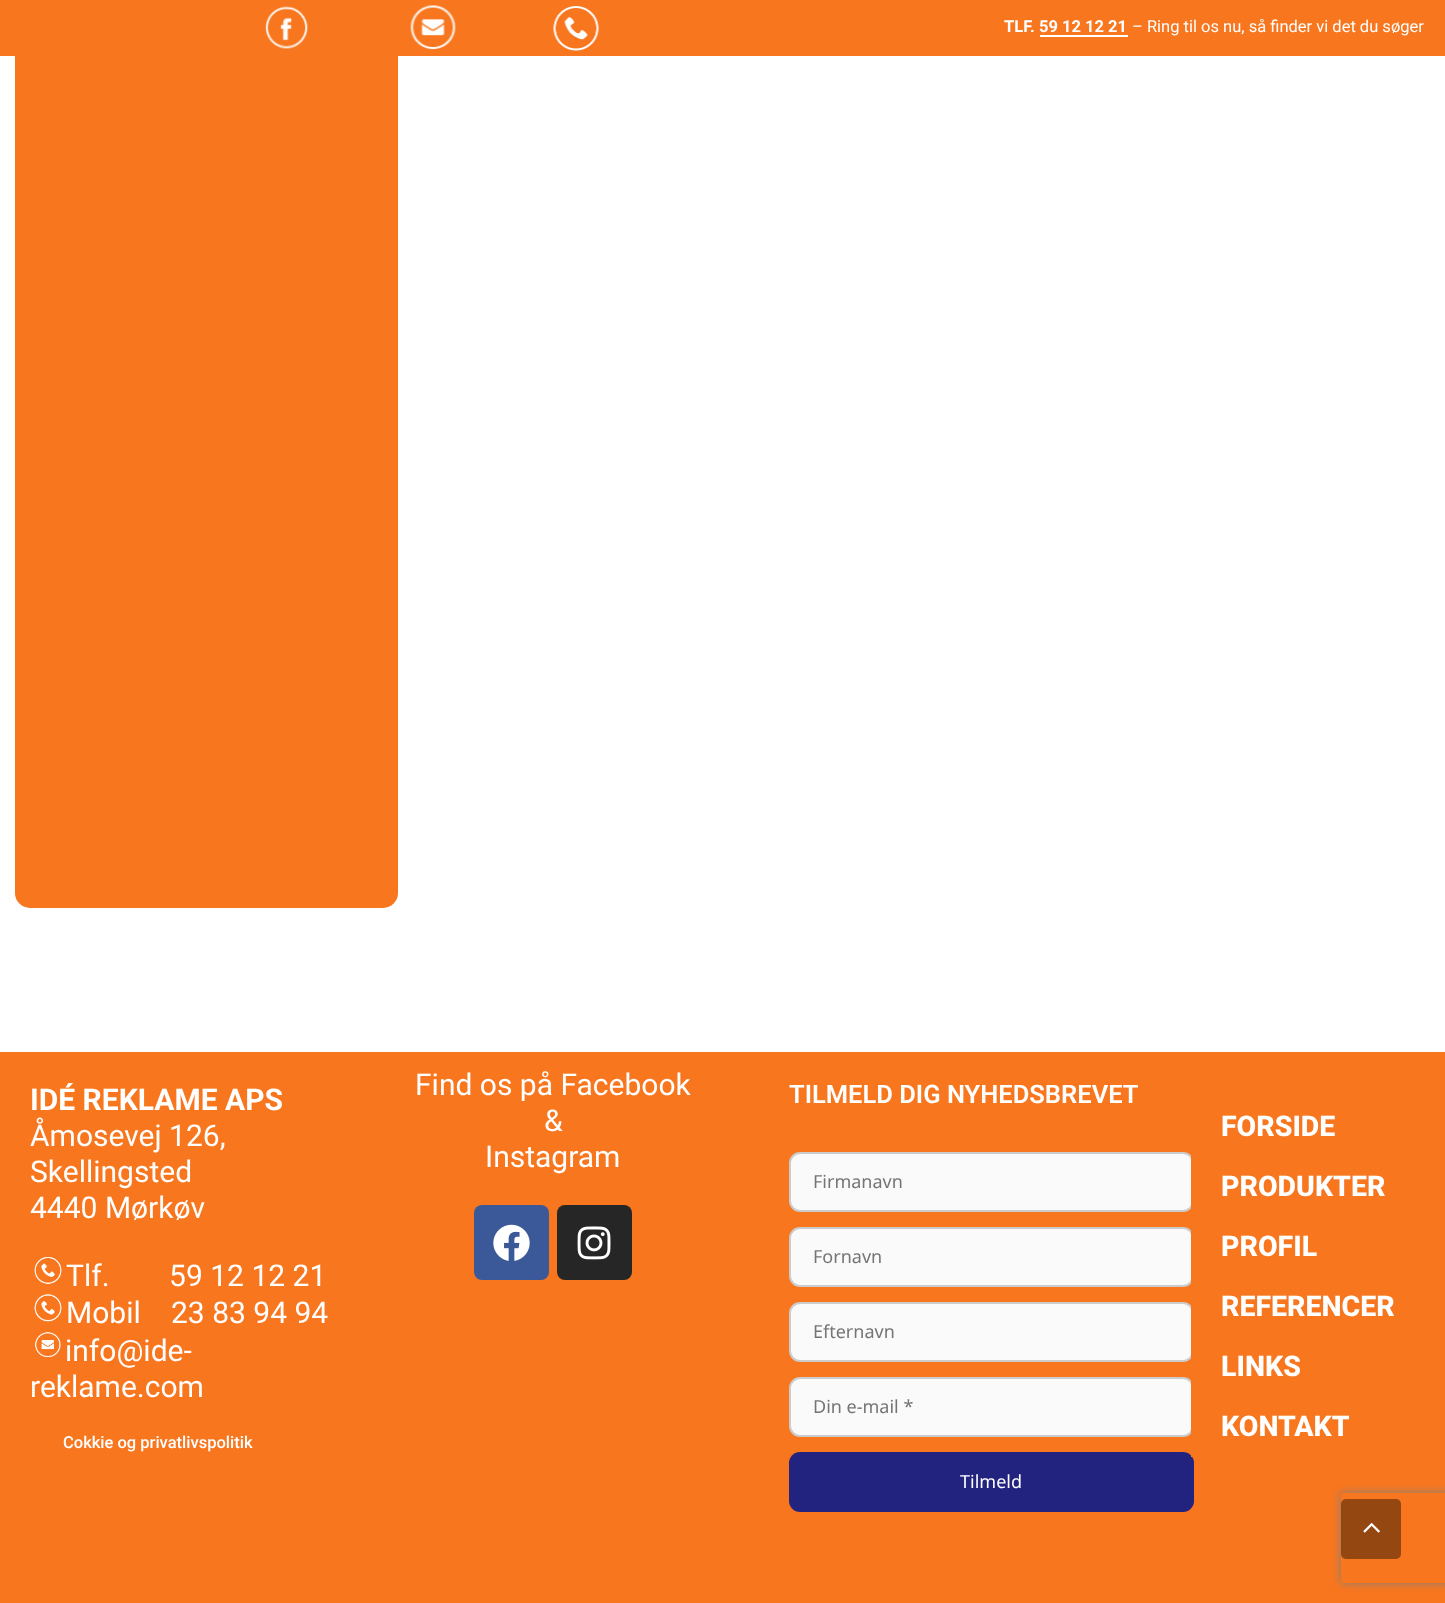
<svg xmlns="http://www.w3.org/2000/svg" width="1445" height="1603">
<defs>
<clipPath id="clip1"><path d="M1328 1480h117v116h-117zm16 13h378c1.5 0 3 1.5 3 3v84c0 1.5-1.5 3-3 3h-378c-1.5 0-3-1.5-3-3v-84c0-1.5 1.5-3 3-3z" clip-rule="evenodd"/></clipPath>
</defs>
<rect width="100%" height="100%" fill="#fff"/>
<rect x="15" y="-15" width="383" height="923" rx="15" fill="#f8761e"/>
<rect width="1445" height="56" fill="#f8761e"/>
<image x="265" y="6" width="43" height="43" href="media/1.png"/>
<image x="410" y="5" width="46" height="45" href="media/2.png"/>
<image x="553" y="6" width="46" height="45" href="media/3.png"/>
<text x="1004" y="32" style="font-family:Roboto;font-size:16.5px;font-weight:bold;fill:#fff">TLF. 59 12 12 21</text>
<rect x="1040" y="35" width="88" height="2" fill="#fff"/>
<text x="1132" y="32" style="font-family:Roboto;font-size:16.5px;fill:#fff">– Ring til os nu, så finder vi det du søger</text>
<rect y="1052" width="1445" height="551" fill="#f8761e"/>
<text x="30" y="1110" style="font-family:Roboto;font-size:30px;font-weight:bold;fill:#fff">IDÉ REKLAME APS</text>
<text x="30" y="1146" style="font-family:Roboto;font-size:30px;fill:#fff">Åmosevej 126,</text>
<text x="30" y="1182" style="font-family:Roboto;font-size:30px;fill:#fff">Skellingsted</text>
<text x="30" y="1218" style="font-family:Roboto;font-size:30px;fill:#fff">4440 Mørkøv</text>
<image x="34" y="1257" width="28" height="27" href="media/4.png"/>
<text x="66" y="1286" style="font-family:Roboto;font-size:30px;fill:#fff" xml:space="preserve">Tlf.        59 12 12 21</text>
<image x="34" y="1294" width="28" height="28" href="media/5.png"/>
<text x="66" y="1323" style="font-family:Roboto;font-size:30px;fill:#fff">Mobil</text>
<text x="171" y="1323" style="font-family:Roboto;font-size:30px;fill:#fff">23 83 94 94</text>
<image x="35" y="1332" width="26" height="25" href="media/6.png"/>
<text x="65" y="1361" style="font-family:Roboto;font-size:30px;fill:#fff">info@ide-</text>
<text x="30" y="1397" style="font-family:Roboto;font-size:30px;fill:#fff">reklame.com</text>
<text x="63" y="1448" style="font-family:Roboto;font-size:16.5px;font-weight:500;fill:#fff">Cokkie og privatlivspolitik</text>
<text x="415" y="1095" style="font-family:Roboto;font-size:30px;fill:#fff">Find os på Facebook</text>
<text x="544" y="1131" style="font-family:Roboto;font-size:30px;fill:#fff">&amp;</text>
<text x="485" y="1167" style="font-family:Roboto;font-size:30px;fill:#fff">Instagram</text>
<rect x="474" y="1205" width="75" height="75" rx="8" fill="#3b5998"/>
<image x="493" y="1224" width="37" height="37" href="media/7.png"/>
<rect x="557" y="1205" width="75" height="75" rx="8" fill="#262626"/>
<image x="577" y="1226" width="34" height="34" href="media/8.png"/>
<text x="789" y="1103" style="font-family:Roboto;font-size:25.5px;font-weight:600;fill:#fff">TILMELD DIG NYHEDSBREVET</text>
<rect x="790" y="1153" width="403" height="58" rx="10" fill="#fafafa" stroke="#ccc" stroke-width="2"/>
<text x="813" y="1188" style="font-family:Noto Sans;font-size:18px;fill:#757575">Firmanavn</text>
<rect x="790" y="1228" width="403" height="58" rx="10" fill="#fafafa" stroke="#ccc" stroke-width="2"/>
<text x="813" y="1263" style="font-family:Noto Sans;font-size:18px;fill:#757575">Fornavn</text>
<rect x="790" y="1303" width="403" height="58" rx="10" fill="#fafafa" stroke="#ccc" stroke-width="2"/>
<text x="813" y="1338" style="font-family:Noto Sans;font-size:18px;fill:#757575">Efternavn</text>
<rect x="790" y="1378" width="403" height="58" rx="10" fill="#fafafa" stroke="#ccc" stroke-width="2"/>
<text x="813" y="1413" style="font-family:Noto Sans;font-size:18px;fill:#757575">Din e-mail *</text>
<rect x="789" y="1452" width="405" height="60" rx="11" fill="#22227f"/>
<text x="960" y="1488" style="font-family:Noto Sans;font-size:18px;fill:#fff">Tilmeld</text>
<rect x="1191" y="1155" width="3" height="302" fill="#f8761e"/>
<text x="1221" y="1136" style="font-family:Roboto;font-size:28.5px;font-weight:800;fill:#fff">FORSIDE</text>
<text x="1221" y="1196" style="font-family:Roboto;font-size:28.5px;font-weight:800;fill:#fff">PRODUKTER</text>
<text x="1221" y="1256" style="font-family:Roboto;font-size:28.5px;font-weight:800;fill:#fff">PROFIL</text>
<text x="1221" y="1316" style="font-family:Roboto;font-size:28.5px;font-weight:800;fill:#fff">REFERENCER</text>
<text x="1221" y="1376" style="font-family:Roboto;font-size:28.5px;font-weight:800;fill:#fff">LINKS</text>
<text x="1221" y="1436" style="font-family:Roboto;font-size:28.5px;font-weight:800;fill:#fff">KONTAKT</text>
<g clip-path="url(#clip1)">
<rect x="1341" y="1493" width="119" height="90" rx="3" fill="#808080" filter="blur(4px)"/>
</g>
<rect x="1341" y="1499" width="60" height="60" rx="5" fill="#954712"/>
<image x="1363" y="1522" width="17" height="11" href="media/9.png"/>
</svg>
